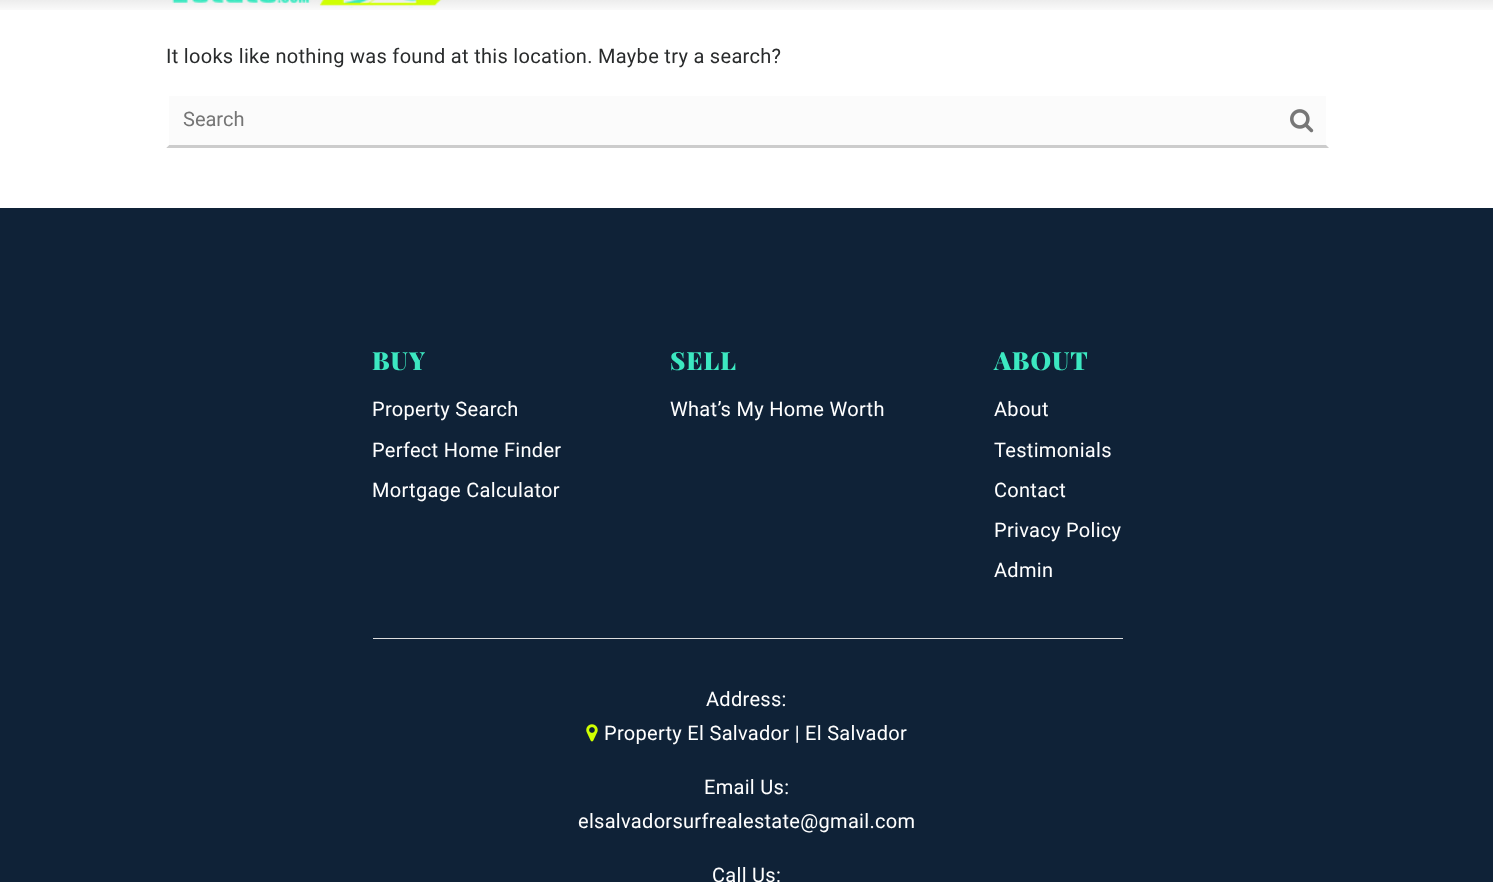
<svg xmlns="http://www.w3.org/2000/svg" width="1493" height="882">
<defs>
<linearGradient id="g1" gradientUnits="userSpaceOnUse" x1="747" y1="-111" x2="747" y2="14"><stop offset="0" stop-color="#000" stop-opacity="0.65"/><stop offset="1" stop-color="#000" stop-opacity="0"/></linearGradient>
</defs>
<rect width="100%" height="100%" fill="#fff"/>
<rect width="1493" height="10" fill="url(#g1)"/>
<image x="172" y="0" width="270" height="8" href="media/1.png"/>
<text x="166" y="63" style="font-family:Roboto;font-size:20px;letter-spacing:0.3px;fill:#292b2c">It looks like nothing was found at this location. Maybe try a search?</text>
<rect x="166" y="96" width="1163" height="52" fill="#fbfbfb"/>
<path d="M1329 92v56l-3-3v-50z" fill="#fff"/>
<path d="M1329 148h-1163l3-3h1157z" fill="#ccc"/>
<path d="M166 148v-56l3 3v50z" fill="#fff"/>
<text x="183" y="126" style="font-family:Roboto;font-size:20px;fill:#757575">Search</text>
<image x="1290" y="109" width="24" height="24" href="media/2.png"/>
<rect y="208" width="1493" height="674" fill="#0f2237"/>
<rect x="373" y="638" width="750" height="1" fill="#ddd"/>
<text x="372" y="370" style="font-family:Playfair Display;font-size:25px;font-weight:900;letter-spacing:1px;fill:#3ce8c1">BUY</text>
<text x="372" y="416" style="font-family:Roboto;font-size:20px;letter-spacing:0.3px;fill:#fff">Property Search</text>
<text x="372" y="457" style="font-family:Roboto;font-size:20px;letter-spacing:0.3px;fill:#fff">Perfect Home Finder</text>
<text x="372" y="497" style="font-family:Roboto;font-size:20px;letter-spacing:0.3px;fill:#fff">Mortgage Calculator</text>
<text x="670" y="370" style="font-family:Playfair Display;font-size:25px;font-weight:900;letter-spacing:1px;fill:#3ce8c1">SELL</text>
<text x="670" y="416" style="font-family:Roboto;font-size:20px;letter-spacing:0.3px;fill:#fff">What’s My Home Worth</text>
<text x="994" y="370" style="font-family:Playfair Display;font-size:25px;font-weight:900;letter-spacing:1px;fill:#3ce8c1">ABOUT</text>
<text x="994" y="416" style="font-family:Roboto;font-size:20px;letter-spacing:0.3px;fill:#fff">About</text>
<text x="994" y="457" style="font-family:Roboto;font-size:20px;letter-spacing:0.3px;fill:#fff">Testimonials</text>
<text x="994" y="497" style="font-family:Roboto;font-size:20px;letter-spacing:0.3px;fill:#fff">Contact</text>
<text x="994" y="537" style="font-family:Roboto;font-size:20px;letter-spacing:0.3px;fill:#fff">Privacy Policy</text>
<text x="994" y="577" style="font-family:Roboto;font-size:20px;letter-spacing:0.3px;fill:#fff">Admin</text>
<text x="706" y="706" style="font-family:Roboto;font-size:20px;letter-spacing:0.3px;fill:#fff">Address:</text>
<image x="586" y="724" width="12" height="18" href="media/3.png"/>
<text x="604" y="740" style="font-family:Roboto;font-size:20px;letter-spacing:0.3px;fill:#fff">Property El Salvador | El Salvador</text>
<text x="704" y="794" style="font-family:Roboto;font-size:20px;letter-spacing:0.3px;fill:#fff">Email Us:</text>
<text x="578" y="828" style="font-family:Roboto;font-size:20px;letter-spacing:0.3px;fill:#fff">elsalvadorsurfrealestate@gmail.com</text>
<text x="712" y="882" style="font-family:Roboto;font-size:20px;letter-spacing:0.3px;fill:#fff">Call Us:</text>
</svg>
